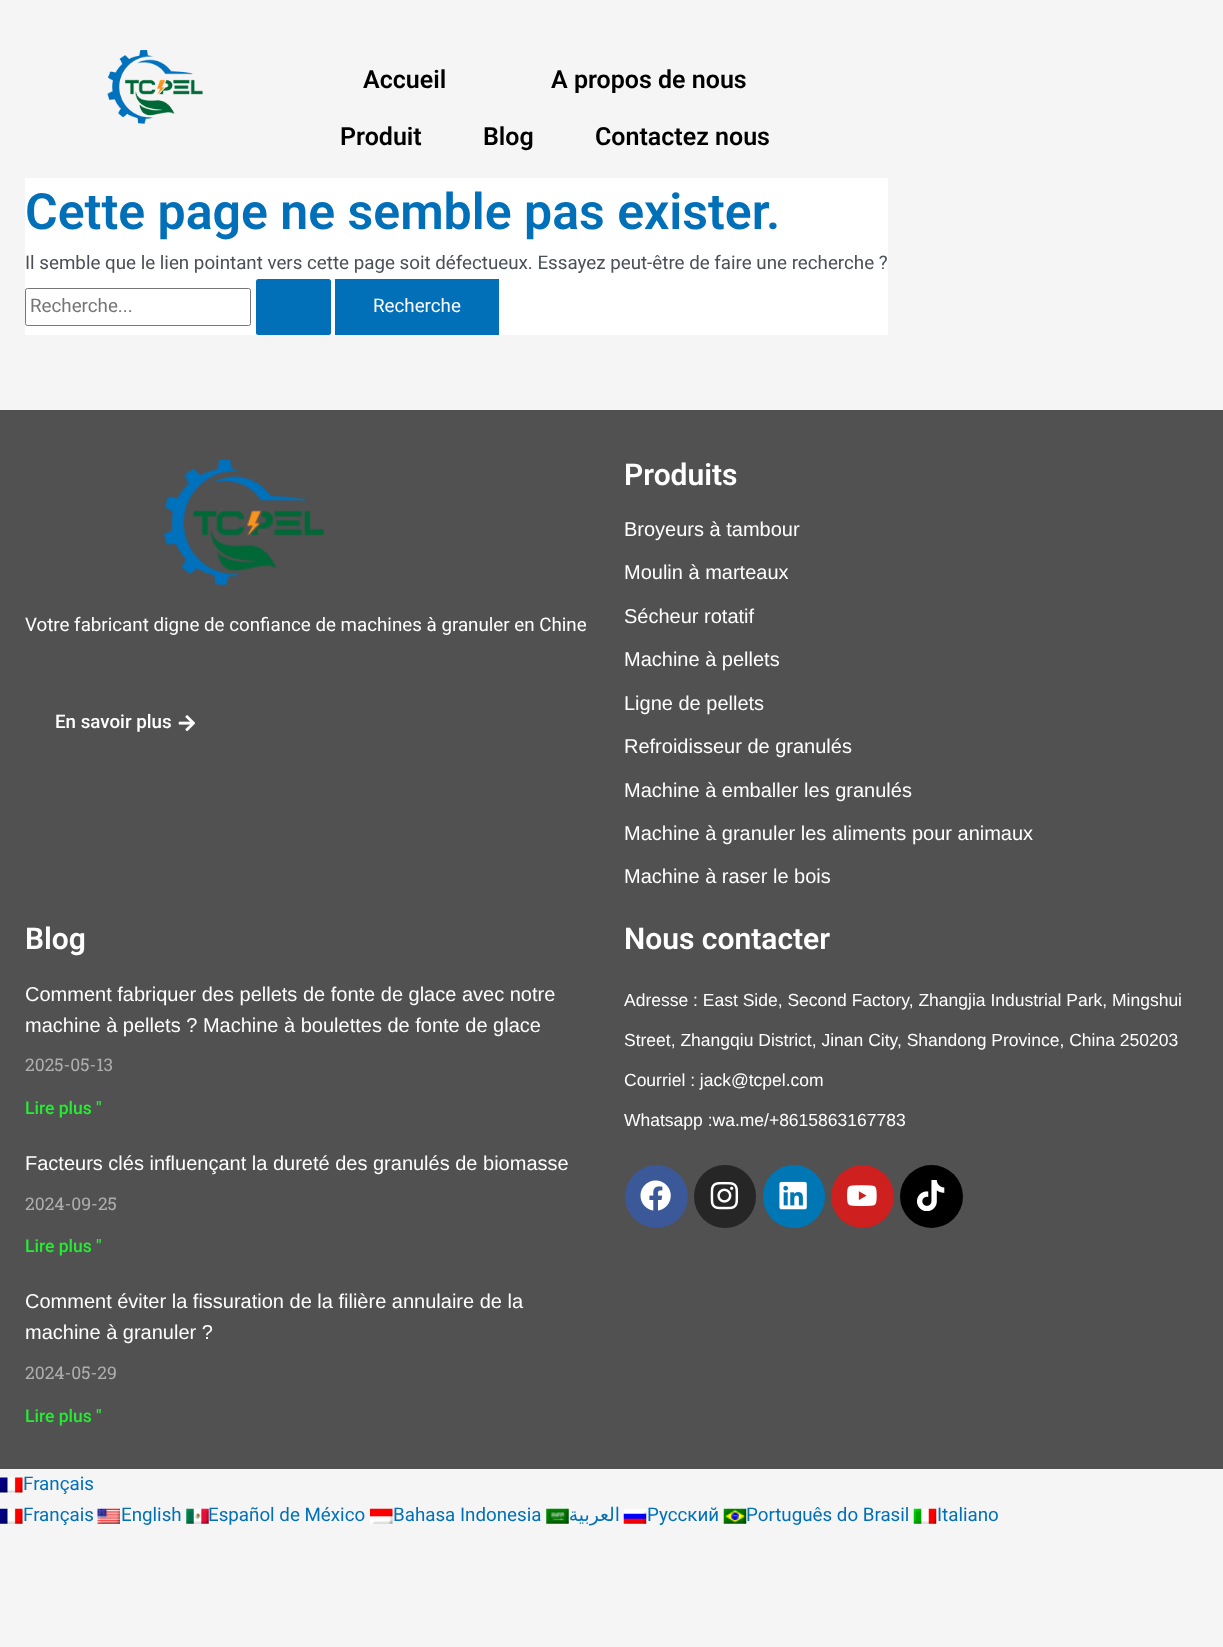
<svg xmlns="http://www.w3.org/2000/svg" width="1223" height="1647">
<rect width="100%" height="100%" fill="#f5f5f5"/>
<image x="107" y="50" width="96" height="74" href="media/1.png"/>
<text x="363" y="88" style="font-family:Roboto;font-size:25px;font-weight:600;fill:#000">Accueil</text>
<text x="551" y="88" style="font-family:Roboto;font-size:25px;font-weight:600;fill:#000">A propos de nous</text>
<text x="340" y="145" style="font-family:Roboto;font-size:25px;font-weight:600;fill:#000">Produit</text>
<text x="483" y="145" style="font-family:Roboto;font-size:25px;font-weight:600;fill:#000">Blog</text>
<text x="595" y="145" style="font-family:Roboto;font-size:25px;font-weight:600;fill:#000">Contactez nous</text>
<rect x="25" y="178" width="863" height="157" fill="#fff"/>
<text x="25" y="229" style="font-family:Roboto;font-size:50px;font-weight:600;fill:#0170b9">Cette page ne semble pas exister.</text>
<text x="25" y="269" style="font-family:Roboto;font-size:18.75px;fill:#4b4f58">Il semble que le lien pointant vers cette page soit défectueux. Essayez peut-être de faire une recherche ?</text>
<rect x="25.5" y="288.5" width="225" height="37" rx="2" fill="none" stroke="#767676"/>
<text x="30" y="312" style="font-family:Roboto;font-size:18.75px;fill:#757575">Recherche...</text>
<rect x="256" y="279" width="75" height="56" rx="2.5" fill="#0170b9"/>
<rect x="335" y="279" width="164" height="56" fill="#0170b9"/>
<text x="373" y="312" style="font-family:Roboto;font-size:18.75px;fill:#fff">Recherche</text>
<rect y="410" width="1223" height="1059" fill="#515151"/>
<image x="163" y="460" width="161" height="125" href="media/2.png"/>
<text x="25" y="631" style="font-family:Roboto;font-size:18.75px;fill:#fff">Votre fabricant digne de confiance de machines à granuler en Chine</text>
<text x="55" y="728" style="font-family:Roboto;font-size:18.75px;font-weight:500;fill:#fff">En savoir plus</text>
<image x="178" y="715" width="17" height="17" href="media/3.png"/>
<text x="624" y="485" style="font-family:Roboto;font-size:30px;font-weight:600;fill:#fff">Produits</text>
<text x="624" y="536" style="font-family:Liberation Sans;font-size:20px;fill:#fff">Broyeurs à tambour</text>
<text x="624" y="579" style="font-family:Liberation Sans;font-size:20px;fill:#fff">Moulin à marteaux</text>
<text x="624" y="623" style="font-family:Liberation Sans;font-size:20px;fill:#fff">Sécheur rotatif</text>
<text x="624" y="666" style="font-family:Liberation Sans;font-size:20px;fill:#fff">Machine à pellets</text>
<text x="624" y="710" style="font-family:Liberation Sans;font-size:20px;fill:#fff">Ligne de pellets</text>
<text x="624" y="753" style="font-family:Liberation Sans;font-size:20px;fill:#fff">Refroidisseur de granulés</text>
<text x="624" y="797" style="font-family:Liberation Sans;font-size:20px;fill:#fff">Machine à emballer les granulés</text>
<text x="624" y="840" style="font-family:Liberation Sans;font-size:20px;fill:#fff">Machine à granuler les aliments pour animaux</text>
<text x="624" y="883" style="font-family:Liberation Sans;font-size:20px;fill:#fff">Machine à raser le bois</text>
<text x="25" y="949" style="font-family:Roboto;font-size:30px;font-weight:600;fill:#fff">Blog</text>
<text x="25" y="1001" style="font-family:Liberation Sans;font-size:20px;fill:#fff">Comment fabriquer des pellets de fonte de glace avec notre</text>
<text x="25" y="1032" style="font-family:Liberation Sans;font-size:20px;fill:#fff">machine à pellets ? Machine à boulettes de fonte de glace</text>
<text x="25" y="1071" style="font-family:Roboto Slab;font-size:17.5px;fill:#adadad">2025-05-13</text>
<text x="25" y="1114" style="font-family:Roboto;font-size:17.5px;font-weight:500;fill:#24ee31">Lire plus "</text>
<text x="25" y="1170" style="font-family:Liberation Sans;font-size:20px;fill:#fff">Facteurs clés influençant la dureté des granulés de biomasse</text>
<text x="25" y="1210" style="font-family:Roboto Slab;font-size:17.5px;fill:#adadad">2024-09-25</text>
<text x="25" y="1252" style="font-family:Roboto;font-size:17.5px;font-weight:500;fill:#24ee31">Lire plus "</text>
<text x="25" y="1308" style="font-family:Liberation Sans;font-size:20px;fill:#fff">Comment éviter la fissuration de la filière annulaire de la</text>
<text x="25" y="1339" style="font-family:Liberation Sans;font-size:20px;fill:#fff">machine à granuler ?</text>
<text x="25" y="1379" style="font-family:Roboto Slab;font-size:17.5px;fill:#adadad">2024-05-29</text>
<text x="25" y="1422" style="font-family:Roboto;font-size:17.5px;font-weight:500;fill:#24ee31">Lire plus "</text>
<text x="624" y="949" style="font-family:Roboto;font-size:30px;font-weight:600;fill:#fff">Nous contacter</text>
<text x="624" y="1006" style="font-family:Liberation Sans;font-size:17.5px;fill:#fff">Adresse : East Side, Second Factory, Zhangjia Industrial Park, Mingshui</text>
<text x="624" y="1046" style="font-family:Liberation Sans;font-size:17.5px;fill:#fff">Street, Zhangqiu District, Jinan City, Shandong Province, China 250203</text>
<text x="624" y="1086" style="font-family:Liberation Sans;font-size:17.5px;fill:#fff">Courriel : jack@tcpel.com</text>
<text x="624" y="1126" style="font-family:Liberation Sans;font-size:17.5px;fill:#fff">Whatsapp :wa.me/+8615863167783</text>
<circle cx="656.5" cy="1196.5" r="31.5" fill="#3b5998"/>
<image x="640" y="1180" width="31" height="31" href="media/4.png"/>
<rect x="694" y="1165" width="62" height="63" rx="31" fill="#262626"/>
<image x="710" y="1181" width="29" height="29" href="media/5.png"/>
<rect x="763" y="1165" width="62" height="63" rx="31" fill="#0077b5"/>
<image x="779" y="1181" width="28" height="29" href="media/6.png"/>
<circle cx="862.5" cy="1196.5" r="31.5" fill="#cd201f"/>
<image x="847" y="1185" width="30" height="22" href="media/7.png"/>
<circle cx="931.5" cy="1196.5" r="31.5" fill="#000"/>
<image x="917" y="1180" width="28" height="31" href="media/8.png"/>
<image x="0" y="1477" width="23" height="16" href="media/9.png"/>
<text x="23" y="1490" style="font-family:Roboto;font-size:18.75px;fill:#0170b9">Français</text>
<image x="0" y="1508" width="23" height="16" href="media/10.png"/>
<text x="23" y="1521" style="font-family:Roboto;font-size:18.75px;fill:#0170b9">Français</text>
<image x="97" y="1508" width="23" height="16" href="media/11.png"/>
<text x="121" y="1521" style="font-family:Roboto;font-size:18.75px;fill:#0170b9">English</text>
<image x="186" y="1508" width="23" height="16" href="media/12.png"/>
<text x="208" y="1521" style="font-family:Roboto;font-size:18.75px;fill:#0170b9">Español de México</text>
<image x="370" y="1508" width="23" height="16" href="media/13.png"/>
<text x="393" y="1521" style="font-family:Roboto;font-size:18.75px;fill:#0170b9">Bahasa Indonesia</text>
<image x="546" y="1508" width="23" height="16" href="media/14.png"/>
<text x="620" y="1521" style="font-family:DejaVu Sans;font-size:18.75px;direction:rtl;fill:#0170b9">العربية</text>
<image x="623" y="1509" width="24" height="15" href="media/15.png"/>
<text x="647" y="1521" style="font-family:Roboto;font-size:18.75px;fill:#0170b9">Русский</text>
<image x="723" y="1508" width="24" height="16" href="media/16.png"/>
<text x="746" y="1521" style="font-family:Roboto;font-size:18.75px;fill:#0170b9">Português do Brasil</text>
<image x="913" y="1508" width="24" height="16" href="media/17.png"/>
<text x="937" y="1521" style="font-family:Roboto;font-size:18.75px;fill:#0170b9">Italiano</text>
</svg>
